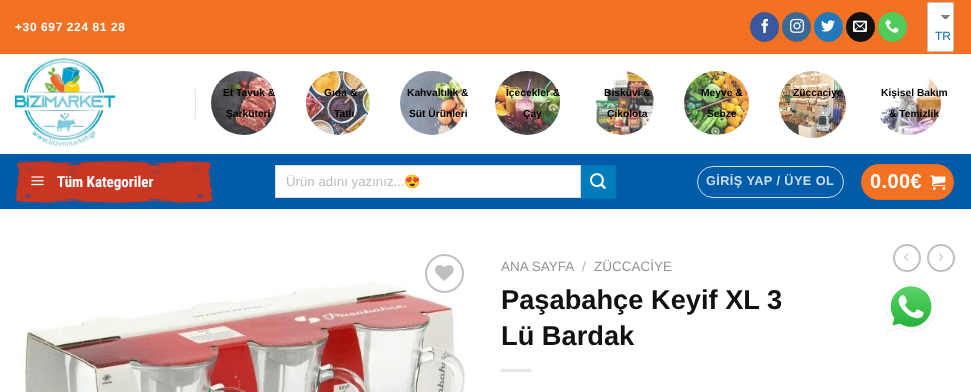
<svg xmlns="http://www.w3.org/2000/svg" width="971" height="392">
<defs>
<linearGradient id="g1" gradientUnits="userSpaceOnUse" x1="945" y1="15" x2="950" y2="20"><stop offset="0.5" stop-color="#808080"/><stop offset="0.5" stop-color="#fff"/></linearGradient>
<linearGradient id="g2" gradientUnits="userSpaceOnUse" x1="940" y1="20" x2="945" y2="15"><stop offset="0.5" stop-color="#fff"/><stop offset="0.5" stop-color="#808080"/></linearGradient>
</defs>
<rect width="100%" height="100%" fill="#fff"/>
<rect width="971" height="54" fill="#f37122"/>
<text x="15" y="31" style="font-family:Liberation Sans;font-size:12px;font-weight:bold;letter-spacing:0.6px;fill:#fff">+30 697 224 81 28</text>
<rect x="750.5" y="12.5" width="28" height="29" rx="14" fill="#3a589d" stroke="#3a589d"/>
<image x="761" y="18" width="7" height="15" href="media/1.png"/>
<rect x="782.5" y="12.5" width="28" height="29" rx="14" fill="#3b6994" stroke="#3b6994"/>
<image x="790" y="18" width="14" height="15" href="media/2.png"/>
<rect x="814.5" y="12.5" width="28" height="29" rx="14" fill="#2478ba" stroke="#2478ba"/>
<image x="821" y="20" width="14" height="12" href="media/3.png"/>
<rect x="846.5" y="12.5" width="28" height="29" rx="14" fill="#111" stroke="#111"/>
<image x="853" y="20" width="14" height="12" href="media/4.png"/>
<rect x="878.5" y="12.5" width="28" height="29" rx="14" fill="#51cb5a" stroke="#51cb5a"/>
<image x="885" y="19" width="14" height="14" href="media/5.png"/>
<rect x="927" y="2" width="27" height="50" rx="3" fill="#fff"/>
<rect x="945" y="15" width="5" height="4" fill="url(#g1)"/>
<rect x="940" y="15" width="5" height="4" fill="url(#g2)"/>
<rect x="927.5" y="2.5" width="26" height="49" rx="2.5" fill="none" stroke="#c1c1c1"/>
<text x="935" y="40" style="font-family:Liberation Sans;font-size:12px;fill:#0769ad">TR</text>
<image x="15" y="57" width="100" height="91" href="media/6.png"/>
<rect x="195" y="89" width="1" height="30" fill="#e6e6e6"/>
<image x="211" y="71" width="65" height="64" href="media/7.png"/>
<text x="223" y="96" style="font-family:Liberation Sans;font-size:10.25px;font-weight:bold;fill:#000">Et Tavuk &amp;</text>
<text x="226" y="117" style="font-family:Liberation Sans;font-size:10.25px;font-weight:bold;fill:#000">Şarküteri</text>
<image x="306" y="71" width="64" height="64" href="media/8.png"/>
<text x="324" y="96" style="font-family:Liberation Sans;font-size:10.25px;font-weight:bold;fill:#000">Gıda &amp;</text>
<text x="334" y="117" style="font-family:Liberation Sans;font-size:10.25px;font-weight:bold;fill:#000">Tatlı</text>
<image x="400" y="71" width="65" height="64" href="media/9.png"/>
<text x="407" y="96" style="font-family:Liberation Sans;font-size:10.25px;font-weight:bold;fill:#000">Kahvaltılık &amp;</text>
<text x="409" y="117" style="font-family:Liberation Sans;font-size:10.25px;font-weight:bold;fill:#000">Süt Ürünleri</text>
<image x="495" y="71" width="65" height="64" href="media/10.png"/>
<text x="506" y="96" style="font-family:Liberation Sans;font-size:10.25px;font-weight:bold;fill:#000">İçecekler &amp;</text>
<text x="523" y="117" style="font-family:Liberation Sans;font-size:10.25px;font-weight:bold;fill:#000">Çay</text>
<image x="595" y="71" width="59" height="64" href="media/11.png"/>
<text x="604" y="96" style="font-family:Liberation Sans;font-size:10.25px;font-weight:bold;fill:#000">Bisküvi &amp;</text>
<text x="607" y="117" style="font-family:Liberation Sans;font-size:10.25px;font-weight:bold;fill:#000">Çikolota</text>
<image x="684" y="71" width="65" height="64" href="media/12.png"/>
<text x="701" y="96" style="font-family:Liberation Sans;font-size:10.25px;font-weight:bold;fill:#000">Meyve &amp;</text>
<text x="707" y="117" style="font-family:Liberation Sans;font-size:10.25px;font-weight:bold;fill:#000">Sebze</text>
<image x="779" y="71" width="67" height="67" href="media/13.png"/>
<text x="793" y="96" style="font-family:Liberation Sans;font-size:10.25px;font-weight:bold;fill:#000">Züccaciye</text>
<image x="879" y="78" width="62" height="57" href="media/14.png"/>
<text x="881" y="96" style="font-family:Liberation Sans;font-size:10.25px;font-weight:bold;fill:#000">Kişisel Bakım</text>
<text x="889" y="117" style="font-family:Liberation Sans;font-size:10.25px;font-weight:bold;fill:#000">&amp; Temizlik</text>
<rect y="154" width="971" height="55" fill="#005ba9"/>
<rect x="15" y="154" width="941" height="1" fill="#06589e"/>
<image x="15" y="160" width="198" height="44" href="media/15.png"/>
<image x="31" y="176" width="13" height="10" href="media/16.png"/>
<text x="57" y="187" style="font-family:Roboto Condensed;font-size:15px;font-weight:bold;fill:#fff">Tüm Kategoriler</text>
<rect x="275.5" y="165.5" width="305" height="32" fill="#fff" stroke="#ddd"/>
<text x="286" y="186" style="font-family:Liberation Sans;font-size:13.25px;fill:#bababa">Ürün adını yazınız...</text>
<text x="404" y="186" style="font-family:Noto Color Emoji;font-size:13.25px;fill:#bababa">😍</text>
<rect x="581.5" y="165.5" width="34" height="33" fill="#007cba" stroke="#0076b1"/>
<image x="590" y="173" width="16" height="16" href="media/17.png"/>
<rect x="697.5" y="166.5" width="146" height="31" rx="15.5" fill="none" stroke="#ccdeee"/>
<text x="706" y="185" style="font-family:Liberation Sans;font-size:12.75px;font-weight:bold;letter-spacing:0.4px;fill:#ccdeee">GİRİŞ YAP / ÜYE OL</text>
<rect x="861" y="164" width="93" height="36" rx="18" fill="#f37122"/>
<rect x="861.5" y="164.5" width="92" height="35" fill="none" stroke="#0000000d"/>
<text x="870" y="188" style="font-family:Liberation Sans;font-size:20px;font-weight:bold;letter-spacing:0.4px;fill:#fff">0.00€</text>
<image x="930" y="175" width="16" height="15" href="media/18.png"/>
<image x="21" y="281" width="444" height="111" href="media/20.png"/>
<circle cx="444.5" cy="273.5" r="18.5" fill="none" stroke="#c0c0c0" stroke-width="2"/>
<image x="435" y="265" width="19" height="16" href="media/19.png"/>
<text x="501" y="271" style="font-family:Liberation Sans;font-size:13.5px;fill:#949494">ANA SAYFA</text>
<text x="582" y="271" style="font-family:Liberation Sans;font-size:13.5px;fill:#b2b2b2">/</text>
<text x="594" y="271" style="font-family:Liberation Sans;font-size:13.5px;fill:#949494">ZÜCCACİYE</text>
<text x="501" y="309" style="font-family:Liberation Sans;font-size:27.25px;font-weight:bold;fill:#111">Paşabahçe Keyif XL 3</text>
<text x="501" y="345" style="font-family:Liberation Sans;font-size:27.25px;font-weight:bold;fill:#111">Lü Bardak</text>
<rect x="501" y="369" width="30" height="3" fill="#e6e6e6"/>
<circle cx="907" cy="258" r="13" fill="none" stroke="#c0c0c0" stroke-width="2"/>
<image x="904" y="253" width="5" height="8" href="media/21.png"/>
<circle cx="941" cy="258" r="13" fill="none" stroke="#c0c0c0" stroke-width="2"/>
<image x="939" y="253" width="4" height="8" href="media/22.png"/>
<image x="886" y="282" width="50" height="50" href="media/23.png"/>
</svg>
